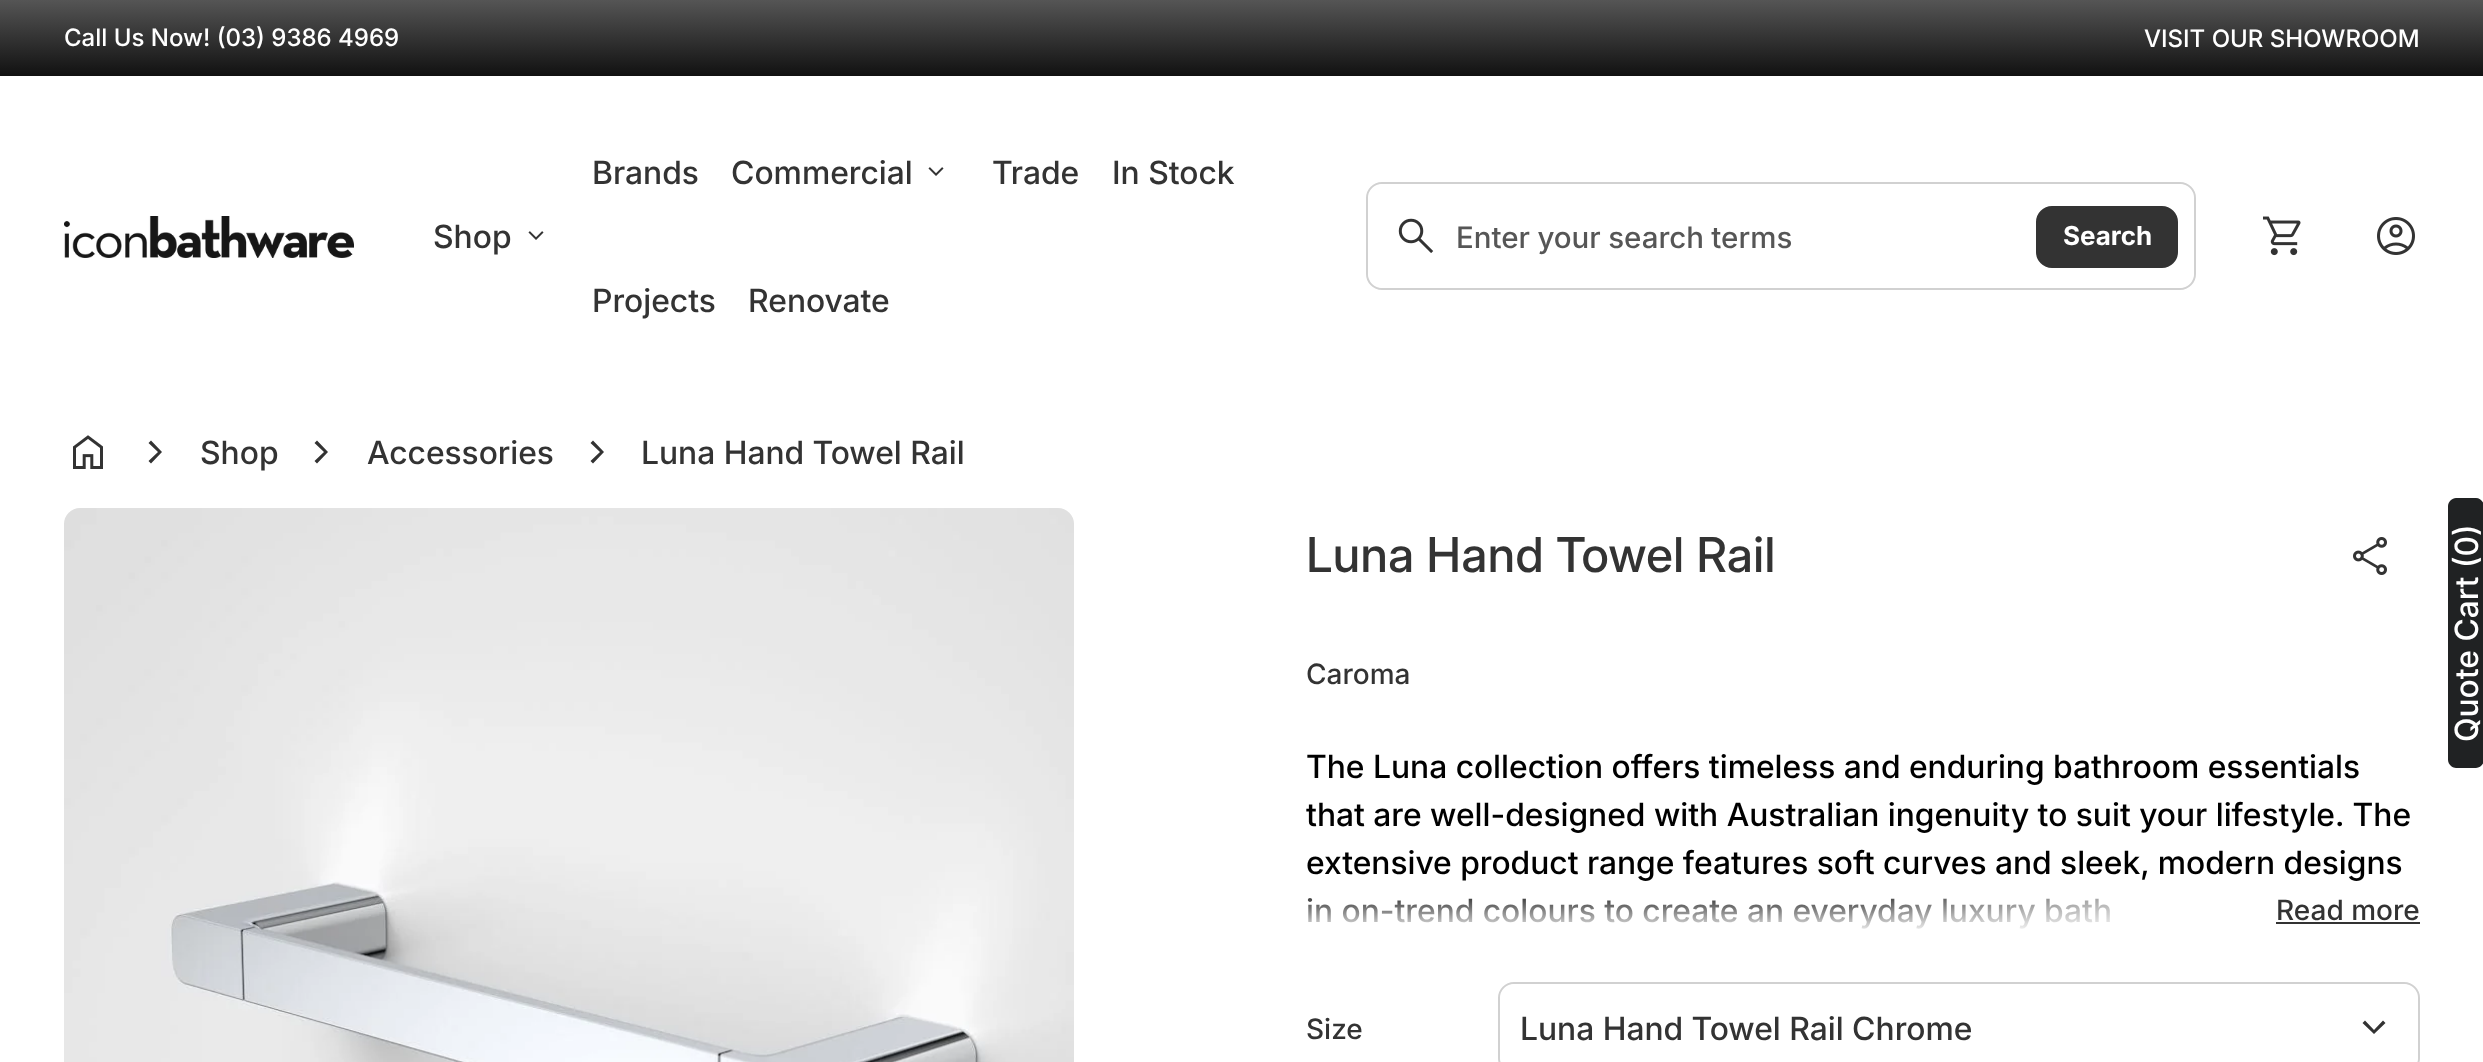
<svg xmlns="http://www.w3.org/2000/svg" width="2483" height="1062">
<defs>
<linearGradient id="g1" gradientUnits="userSpaceOnUse" x1="1242" y1="76" x2="1242" y2="0"><stop offset="0" stop-color="#111"/><stop offset="1" stop-color="#555"/></linearGradient>
<linearGradient id="g2" gradientUnits="userSpaceOnUse" x1="2420" y1="912" x2="1306" y2="912"><stop offset="0.1" stop-color="#fff"/><stop offset="0.5" stop-color="#fff" stop-opacity="0"/></linearGradient>
<linearGradient id="g3" gradientUnits="userSpaceOnUse" x1="1863" y1="934" x2="1863" y2="886"><stop offset="0" stop-color="#fff"/><stop offset="1" stop-color="#fff" stop-opacity="0"/></linearGradient>
</defs>
<rect width="100%" height="100%" fill="#fff"/>
<rect width="2483" height="76" fill="url(#g1)"/>
<text x="64" y="46" style="font-family:'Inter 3';font-size:24px;font-weight:500;fill:#fff">Call Us Now! (03) 9386 4969</text>
<text x="2144" y="47" style="font-family:'Inter 3';font-size:24px;font-weight:500;fill:#fff">VISIT OUR SHOWROOM</text>
<image x="64" y="216" width="290" height="42" href="media/1.png"/>
<text x="433" y="248" style="font-family:Inter;font-size:32px;font-weight:500;fill:#333">Shop</text>
<image x="528" y="231" width="16" height="9" href="media/2.png"/>
<text x="592" y="184" style="font-family:Inter;font-size:32px;font-weight:500;fill:#333">Brands</text>
<text x="731" y="184" style="font-family:Inter;font-size:32px;font-weight:500;fill:#333">Commercial</text>
<image x="928" y="167" width="16" height="9" href="media/2.png"/>
<text x="992" y="184" style="font-family:Inter;font-size:32px;font-weight:500;fill:#333">Trade</text>
<text x="1112" y="184" style="font-family:Inter;font-size:32px;font-weight:500;fill:#333">In Stock</text>
<text x="592" y="312" style="font-family:Inter;font-size:32px;font-weight:500;fill:#333">Projects</text>
<text x="748" y="312" style="font-family:Inter;font-size:32px;font-weight:500;fill:#333">Renovate</text>
<rect x="1367" y="183" width="828" height="106" rx="15" fill="none" stroke="#d1d1d1" stroke-width="2"/>
<rect x="1368" y="184" width="826" height="104" rx="16" fill="#fff"/>
<image x="1398" y="218" width="36" height="35" href="media/3.png"/>
<text x="1456" y="248" word-spacing="-0.5" style="font-family:'Inter 3';font-size:29.5px;font-weight:500;fill:#565656">Enter your search terms</text>
<rect x="2037" y="207" width="140" height="60" rx="15" fill="#333" stroke="#333" stroke-width="2"/>
<text x="2063" y="245" style="font-family:Inter;font-size:26px;font-weight:bold;fill:#fff">Search</text>
<image x="2263" y="216" width="38" height="40" href="media/4.png"/>
<image x="2377" y="217" width="38" height="38" href="media/5.png"/>
<image x="73" y="435" width="30" height="34" href="media/6.png"/>
<path d="M158 452l-9.5-9l2.5-2.5l11 11.5l-11 11.5l-2.5-2.5z" fill="#333"/>
<text x="200" y="464" style="font-family:Inter;font-size:32px;font-weight:500;fill:#333">Shop</text>
<path d="M324 452l-9.5-9l2.5-2.5l11 11.5l-11 11.5l-2.5-2.5z" fill="#333"/>
<text x="367" y="464" style="font-family:Inter;font-size:32px;font-weight:500;fill:#333">Accessories</text>
<path d="M600 452l-9.5-9l2.5-2.5l11 11.5l-11 11.5l-2.5-2.5z" fill="#333"/>
<text x="641" y="464" style="font-family:Inter;font-size:32px;font-weight:500;fill:#333">Luna Hand Towel Rail</text>
<image x="64" y="508" width="1010" height="554" href="media/7.png"/>
<text x="1306" y="572" style="font-family:'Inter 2';font-size:48px;font-weight:500;fill:#333">Luna Hand Towel Rail</text>
<image x="2353" y="537" width="34" height="38" href="media/8.png"/>
<text x="1306" y="684" style="font-family:'Inter 3';font-size:28px;font-weight:500;fill:#333">Caroma</text>
<text x="1306" y="778" style="font-family:Inter;font-size:32px;font-weight:500;fill:#000">The Luna collection offers timeless and enduring bathroom essentials</text>
<text x="1306" y="826" style="font-family:Inter;font-size:32px;font-weight:500;fill:#000">that are well-designed with Australian ingenuity to suit your lifestyle. The</text>
<text x="1306" y="874" style="font-family:Inter;font-size:32px;font-weight:500;fill:#000">extensive product range features soft curves and sleek, modern designs</text>
<text x="1306" y="922" style="font-family:Inter;font-size:32px;font-weight:500;fill:#000">in on-trend colours to create an everyday luxury bath</text>
<rect x="1873" y="898" width="237" height="31" fill="url(#g2)"/>
<rect x="1307" y="897" width="803" height="32" fill="url(#g3)"/>
<text x="2276" y="920" style="font-family:'Inter 3';font-size:28px;font-weight:500;fill:#333">Read more</text>
<rect x="2276" y="922" width="144" height="2" fill="#333"/>
<text x="1306" y="1039" style="font-family:'Inter 3';font-size:28px;font-weight:500;fill:#333">Size</text>
<rect x="1499" y="983" width="920" height="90" rx="15" fill="none" stroke="#d1d1d1" stroke-width="2"/>
<rect x="1500" y="984" width="918" height="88" rx="16" fill="#fff"/>
<text x="1520" y="1040" style="font-family:Inter;font-size:32px;font-weight:500;fill:#333">Luna Hand Towel Rail Chrome</text>
<path d="M2374 1034l-11.5-11l2.5-2.5l9 9.5l9-9.5l2.5 2.5z" fill="#333"/>
<path d="M2448 760v-254c0-4 4-8 8-8h20c4 0 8 4 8 8v254c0 4-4 8-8 8h-20c-4 0-8-4-8-8z" fill="#202223"/>
<text x="2478" y="742" transform="rotate(-90 2478 742)" style="font-family:Inter;font-size:32px;font-weight:500;fill:#fff">Quote Cart (0)</text>
</svg>
